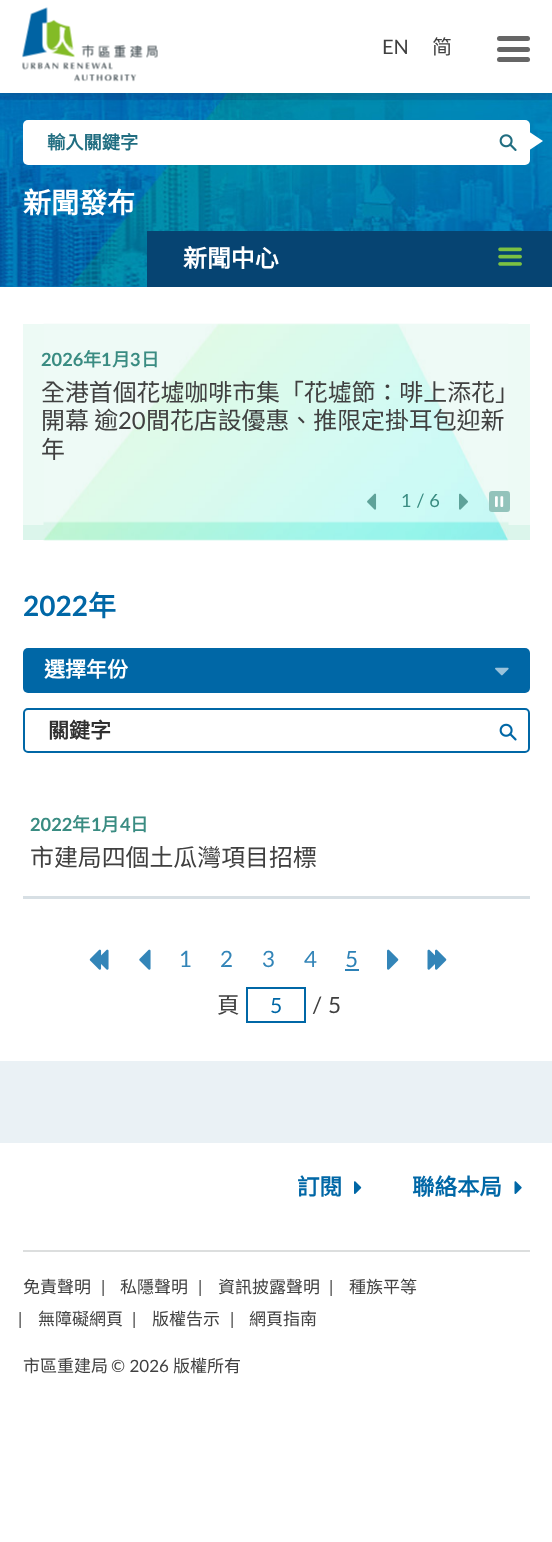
<svg xmlns="http://www.w3.org/2000/svg" width="552" height="1542">
<rect width="100%" height="100%" fill="#fff"/>
<rect y="286" width="147" height="1" fill="#007cbc"/>
<image x="0" y="93" width="552" height="194" href="media/2.png"/>
<rect y="3" width="552" height="93" fill="#32323226" filter="blur(4px)"/>
<rect width="552" height="93" fill="#fff"/>
<image x="22" y="7" width="136" height="75" href="media/1.png"/>
<text x="382" y="54" style="font-family:Lato;font-size:20px;fill:#404040">EN</text>
<text x="432" y="54" style="font-family:Noto Sans CJK SC;font-size:20px;fill:#404040">简</text>
<rect x="497" y="36" width="33" height="5" rx="2.5" fill="#666"/>
<rect x="497" y="47" width="33" height="5" rx="2.5" fill="#666"/>
<rect x="497" y="57" width="33" height="5" rx="2.5" fill="#666"/>
<rect y="1061" width="552" height="82" fill="#eaf1f5"/>
<path d="M529.5 150v-18l13.5 9z" fill="#fff"/>
<rect x="23" y="120" width="507" height="45" rx="5" fill="#fff"/>
<text x="47" y="149" style="font-family:Noto Sans CJK HK;font-size:18.25px;font-weight:bold;fill:#216e81">輸入關鍵字</text>
<image x="499" y="134" width="18" height="17" href="media/3.png"/>
<text x="23" y="213" style="font-family:Noto Sans CJK HK;font-size:28px;font-weight:bold;fill:#fff">新聞發布</text>
<rect x="147" y="231" width="405" height="56" fill="#064472"/>
<text x="183" y="267" style="font-family:Noto Sans CJK HK;font-size:23.9px;font-weight:bold;fill:#fff">新聞中心</text>
<image x="498" y="247" width="24" height="19" href="media/4.png"/>
<rect x="23" y="324" width="507" height="201" fill="#edfaf5"/>
<rect x="23" y="525" width="507" height="15" fill="#dbf5eb"/>
<image x="43" y="323" width="466" height="218" href="media/5.png"/>
<text x="41" y="366" style="font-family:Lato;font-size:18.25px;font-weight:bold;fill:#3a8c82">2026</text>
<text x="83" y="366" style="font-family:Noto Sans CJK HK;font-size:18.25px;font-weight:bold;fill:#3a8c82">年</text>
<text x="101" y="366" style="font-family:Lato;font-size:18.25px;font-weight:bold;fill:#3a8c82">1</text>
<text x="112" y="366" style="font-family:Noto Sans CJK HK;font-size:18.25px;font-weight:bold;fill:#3a8c82">月</text>
<text x="130" y="366" style="font-family:Lato;font-size:18.25px;font-weight:bold;fill:#3a8c82">3</text>
<text x="141" y="366" style="font-family:Noto Sans CJK HK;font-size:18.25px;font-weight:bold;fill:#3a8c82">日</text>
<text x="41" y="401" style="font-family:Noto Sans CJK HK;font-size:23.9px;fill:#404040">全港首個花墟咖啡市集「花墟節：啡上添花」</text>
<text x="41" y="429" style="font-family:Noto Sans CJK HK;font-size:23.9px;fill:#404040">開幕 逾</text>
<text x="118" y="429" style="font-family:Lato;font-size:23.9px;fill:#404040">20</text>
<text x="146" y="429" style="font-family:Noto Sans CJK HK;font-size:23.9px;fill:#404040">間花店設優惠、推限定掛耳包迎新</text>
<text x="41" y="458" style="font-family:Noto Sans CJK HK;font-size:23.9px;fill:#404040">年</text>
<image x="367" y="493" width="10" height="17" href="media/6.png"/>
<text x="401" y="507" style="font-family:Lato;font-size:18.25px;fill:#3a8c82">1 / 6</text>
<rect x="489" y="491" width="21" height="21" rx="3" fill="#93c3bb"/>
<image x="495" y="496" width="9" height="11" href="media/7.png"/>
<image x="459" y="493" width="9" height="17" href="media/8.png"/>
<text x="23" y="616" style="font-family:Lato;font-size:28px;font-weight:bold;fill:#0067a6">2022</text>
<text x="88" y="616" style="font-family:Noto Sans CJK HK;font-size:28px;font-weight:bold;fill:#0067a6">年</text>
<rect x="23" y="648" width="507" height="45" rx="5" fill="#0067a6"/>
<text x="44" y="677" style="font-family:Noto Sans CJK HK;font-size:21px;font-weight:bold;fill:#fff">選擇年份</text>
<image x="495" y="667" width="14" height="9" href="media/9.png"/>
<rect x="24" y="709" width="505" height="43" rx="4" fill="none" stroke="#0067a6" stroke-width="2"/>
<text x="48" y="738" style="font-family:Noto Sans CJK HK;font-size:21px;font-weight:bold;fill:#303030">關鍵字</text>
<image x="499" y="723" width="18" height="18" href="media/10.png"/>
<rect x="23" y="896" width="507" height="3" fill="#d7dfe4"/>
<text x="30" y="831" style="font-family:Lato;font-size:18.25px;font-weight:bold;fill:#3a8c82">2022</text>
<text x="72" y="831" style="font-family:Noto Sans CJK HK;font-size:18.25px;font-weight:bold;fill:#3a8c82">年</text>
<text x="91" y="831" style="font-family:Lato;font-size:18.25px;font-weight:bold;fill:#3a8c82">1</text>
<text x="101" y="831" style="font-family:Noto Sans CJK HK;font-size:18.25px;font-weight:bold;fill:#3a8c82">月</text>
<text x="120" y="831" style="font-family:Lato;font-size:18.25px;font-weight:bold;fill:#3a8c82">4</text>
<text x="130" y="831" style="font-family:Noto Sans CJK HK;font-size:18.25px;font-weight:bold;fill:#3a8c82">日</text>
<text x="30" y="866" style="font-family:Noto Sans CJK HK;font-size:23.9px;fill:#404040">市建局四個土瓜灣項目招標</text>
<image x="89" y="949" width="13" height="21" href="media/11.png"/>
<image x="101" y="949" width="8" height="21" href="media/12.png"/>
<image x="139" y="949" width="12" height="21" href="media/13.png"/>
<text x="179" y="967" style="font-family:Lato;font-size:22.5px;fill:#3385b8">1</text>
<text x="220" y="967" style="font-family:Lato;font-size:22.5px;fill:#3385b8">2</text>
<text x="262" y="967" style="font-family:Lato;font-size:22.5px;fill:#3385b8">3</text>
<text x="304" y="967" style="font-family:Lato;font-size:22.5px;fill:#3385b8">4</text>
<text x="345" y="967" style="font-family:Lato;font-size:22.5px;fill:#2c81b6">5</text>
<rect x="345" y="969" width="14" height="2" fill="#2c81b6"/>
<image x="387" y="949" width="12" height="21" href="media/14.png"/>
<image x="427" y="949" width="8" height="21" href="media/15.png"/>
<image x="435" y="949" width="12" height="21" href="media/14.png"/>
<text x="217" y="1013" style="font-family:Noto Sans CJK HK;font-size:22.5px;fill:#404040">頁</text>
<rect x="247" y="988" width="58" height="34" fill="none" stroke="#0067a6" stroke-width="2"/>
<text x="270" y="1013" style="font-family:Lato;font-size:21px;fill:#0067a6">5</text>
<text x="312" y="1013" style="font-family:Lato;font-size:22.5px;fill:#404040">/ 5</text>
<text x="297" y="1195" style="font-family:Noto Sans CJK HK;font-size:22.5px;font-weight:bold;fill:#0067a6">訂閱</text>
<image x="354" y="1181" width="8" height="13" href="media/16.png"/>
<text x="412" y="1195" style="font-family:Noto Sans CJK HK;font-size:22.5px;font-weight:bold;fill:#0067a6">聯絡本局</text>
<image x="514" y="1181" width="8" height="13" href="media/17.png"/>
<rect x="23" y="1250" width="507" height="2" fill="#dcdede"/>
<text x="23" y="1293" style="font-family:Noto Sans CJK HK;font-size:17px;fill:#404040">免責聲明</text>
<text x="101" y="1293" style="font-family:Lato;font-size:17px;fill:#404040">|</text>
<text x="120" y="1293" style="font-family:Noto Sans CJK HK;font-size:17px;fill:#404040">私隱聲明</text>
<text x="198" y="1293" style="font-family:Lato;font-size:17px;fill:#404040">|</text>
<text x="218" y="1293" style="font-family:Noto Sans CJK HK;font-size:17px;fill:#404040">資訊披露聲明</text>
<text x="329" y="1293" style="font-family:Lato;font-size:17px;fill:#404040">|</text>
<text x="349" y="1293" style="font-family:Noto Sans CJK HK;font-size:17px;fill:#404040">種族平等</text>
<text x="18" y="1325" style="font-family:Lato;font-size:17px;fill:#404040">|</text>
<text x="38" y="1325" style="font-family:Noto Sans CJK HK;font-size:17px;fill:#404040">無障礙網頁</text>
<text x="132" y="1325" style="font-family:Lato;font-size:17px;fill:#404040">|</text>
<text x="152" y="1325" style="font-family:Noto Sans CJK HK;font-size:17px;fill:#404040">版權告示</text>
<text x="230" y="1325" style="font-family:Lato;font-size:17px;fill:#404040">|</text>
<text x="249" y="1325" style="font-family:Noto Sans CJK HK;font-size:17px;fill:#404040">網頁指南</text>
<text x="23" y="1372" style="font-family:Noto Sans CJK HK;font-size:17px;fill:#404040">市區重建局</text>
<text x="111" y="1372" style="font-family:Lato;font-size:17px;fill:#404040">© 2026</text>
<text x="173" y="1372" style="font-family:Noto Sans CJK HK;font-size:17px;fill:#404040">版權所有</text>
</svg>
